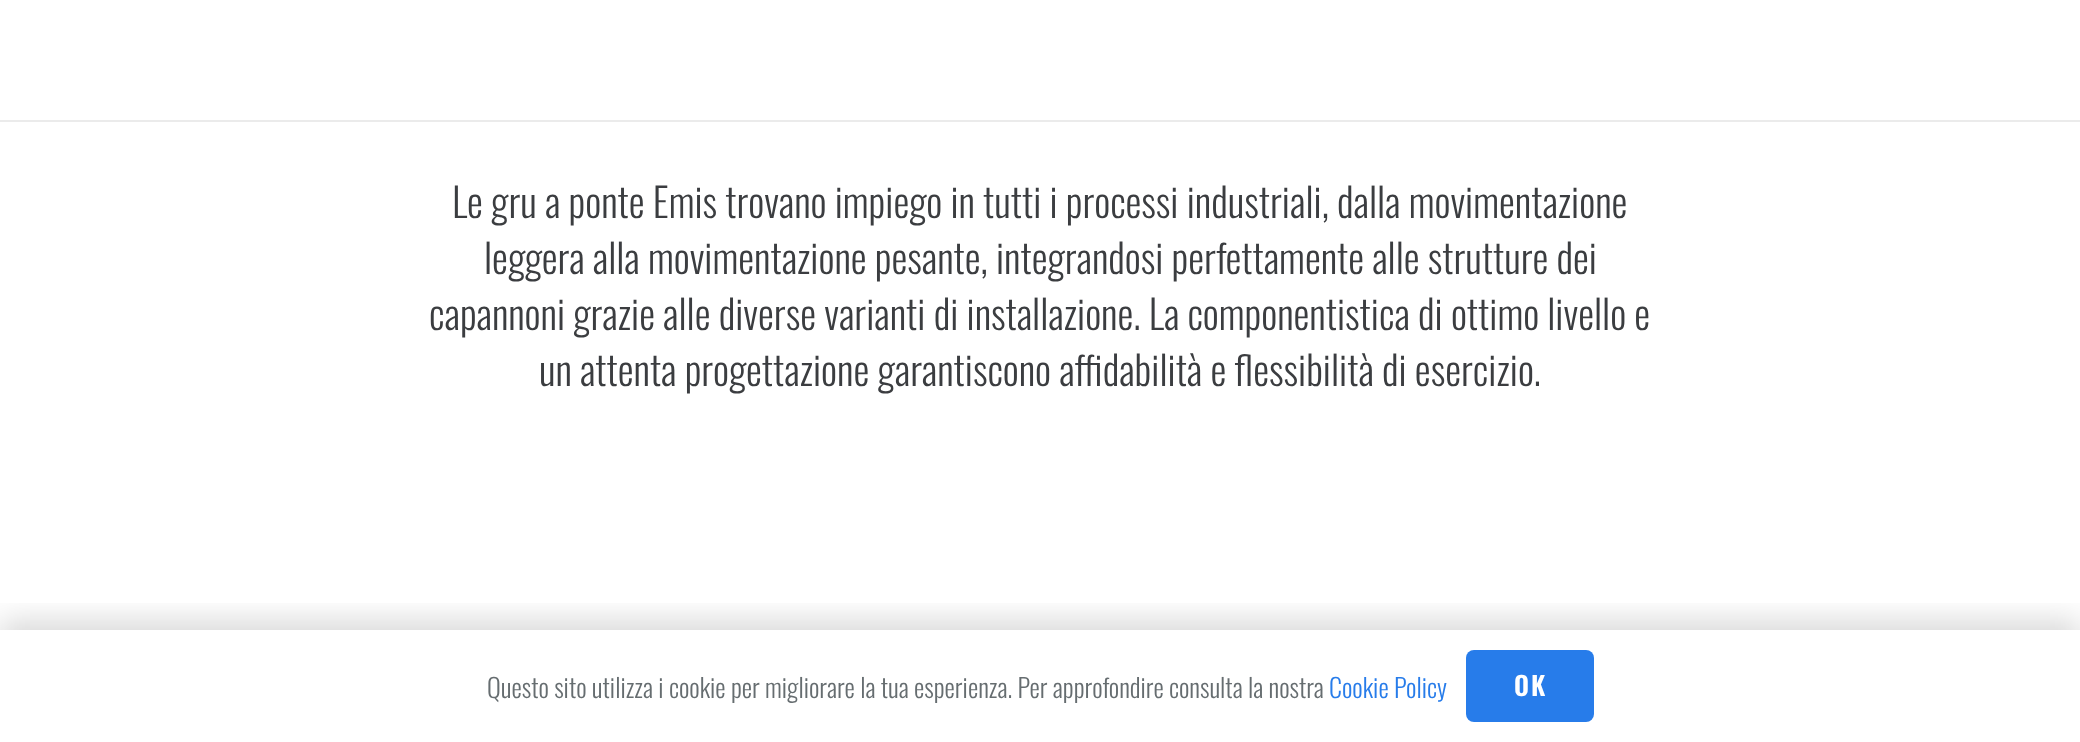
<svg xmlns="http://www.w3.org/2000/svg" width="2080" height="742">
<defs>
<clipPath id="clip1"><rect x="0" y="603" width="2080" height="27"/></clipPath>
</defs>
<rect width="100%" height="100%" fill="#fff"/>
<rect y="120" width="2080" height="2" fill="#ebebeb"/>
<text x="452" y="218" style="font-family:Oswald;font-size:40px;font-weight:300;fill:#3b3d40">Le gru a ponte Emis trovano impiego in tutti i processi industriali, dalla movimentazione</text>
<text x="484" y="274" style="font-family:Oswald;font-size:40px;font-weight:300;fill:#3b3d40">leggera alla movimentazione pesante, integrandosi perfettamente alle strutture dei</text>
<text x="429" y="330" style="font-family:Oswald;font-size:40px;font-weight:300;fill:#3b3d40">capannoni grazie alle diverse varianti di installazione. La componentistica di ottimo livello e</text>
<text x="539" y="386" style="font-family:Oswald;font-size:40px;font-weight:300;fill:#3b3d40">un attenta progettazione garantiscono affidabilità e flessibilità di esercizio.</text>
<g clip-path="url(#clip1)">
<rect y="620" width="2080" height="112" fill="#00000026" filter="blur(15px)"/>
</g>
<text x="487" y="698" style="font-family:Oswald;font-size:26px;font-weight:300;fill:#666d70">Questo sito utilizza i cookie per migliorare la tua esperienza. Per approfondire consulta la nostra</text>
<text x="1329" y="698" style="font-family:Oswald;font-size:26px;font-weight:300;fill:#277cea">Cookie Policy</text>
<rect x="1466" y="650" width="128" height="72" rx="8" fill="#277cea"/>
<text x="1514" y="696" style="font-family:Oswald;font-size:26px;font-weight:600;letter-spacing:2px;fill:#fff">OK</text>
</svg>
